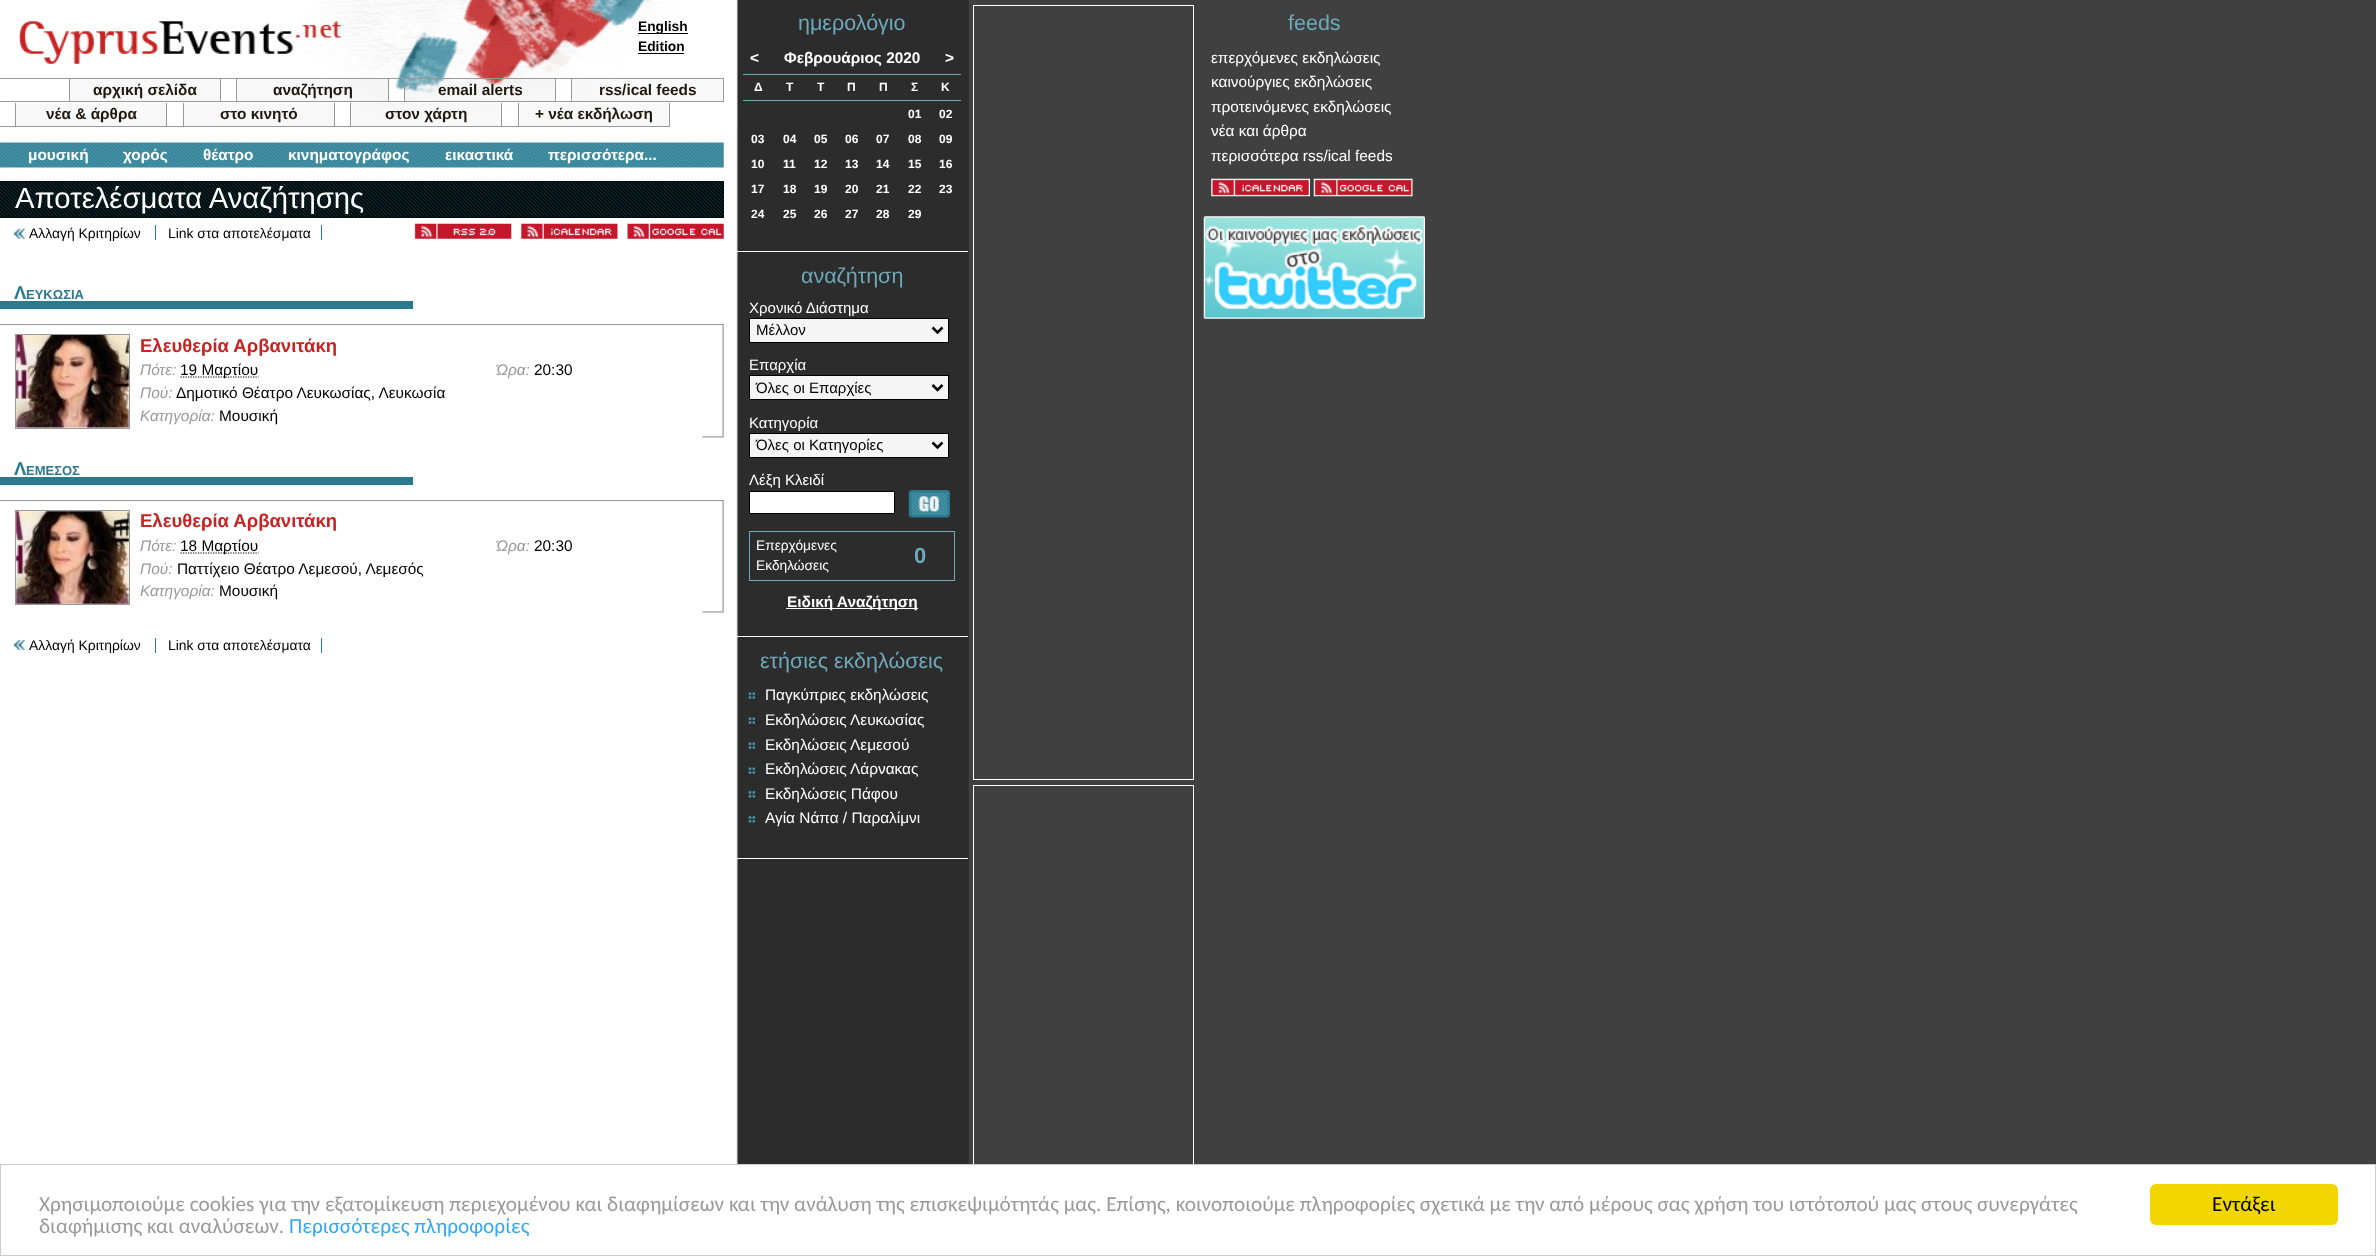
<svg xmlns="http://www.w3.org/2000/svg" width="2376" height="1256">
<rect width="100%" height="100%" fill="#404040"/>
<image x="0" y="0" width="969" height="1164" href="media/1.png"/>
<image x="18" y="0" width="719" height="125" href="media/2.png"/>
<rect x="638" y="33" width="50" height="1" fill="#000"/>
<text x="638" y="31" style="font-family:Liberation Sans;font-size:13.75px;font-weight:bold;fill:#000">English</text>
<text x="638" y="51" style="font-family:Liberation Sans;font-size:13.75px;font-weight:bold;fill:#000">Edition</text>
<rect x="638" y="53" width="46" height="1" fill="#000"/>
<rect y="78" width="724" height="1" fill="#999"/>
<rect y="101" width="724" height="1" fill="#999"/>
<rect x="70" y="79" width="150" height="22" fill="#f8f8f8"/>
<rect x="220" y="79" width="1" height="22" fill="#999"/>
<rect x="69" y="79" width="1" height="22" fill="#999"/>
<text x="93" y="95" style="font-family:Liberation Sans;font-size:15.4px;font-weight:bold;fill:#1e190f">αρχική σελίδα</text>
<rect x="237" y="79" width="151" height="22" fill="#9c9c9c12"/>
<rect x="388" y="79" width="1" height="22" fill="#999"/>
<rect x="236" y="79" width="1" height="22" fill="#999"/>
<text x="273" y="95" style="font-family:Liberation Sans;font-size:15.4px;font-weight:bold;fill:#1e190f">αναζήτηση</text>
<rect x="405" y="79" width="150" height="22" fill="#9c9c9c12"/>
<rect x="555" y="79" width="1" height="22" fill="#999"/>
<rect x="404" y="79" width="1" height="22" fill="#999"/>
<text x="438" y="95" style="font-family:Liberation Sans;font-size:15.4px;font-weight:bold;fill:#1e190f">email alerts</text>
<rect x="572" y="79" width="151" height="22" fill="#9c9c9c12"/>
<rect x="723" y="79" width="1" height="22" fill="#999"/>
<rect x="571" y="79" width="1" height="22" fill="#999"/>
<text x="599" y="95" style="font-family:Liberation Sans;font-size:15.4px;font-weight:bold;fill:#1e190f">rss/ical feeds</text>
<rect y="126" width="670" height="1" fill="#999"/>
<rect x="16" y="103" width="150" height="23" fill="#f8f8f8"/>
<rect x="166" y="103" width="1" height="23" fill="#999"/>
<rect x="15" y="103" width="1" height="23" fill="#999"/>
<text x="46" y="119" style="font-family:Liberation Sans;font-size:15.4px;font-weight:bold;fill:#1e190f">νέα &amp; άρθρα</text>
<rect x="184" y="103" width="150" height="23" fill="#f8f8f8"/>
<rect x="334" y="103" width="1" height="23" fill="#999"/>
<rect x="183" y="103" width="1" height="23" fill="#999"/>
<text x="220" y="119" style="font-family:Liberation Sans;font-size:15.4px;font-weight:bold;fill:#1e190f">στο κινητό</text>
<rect x="351" y="103" width="150" height="23" fill="#9c9c9c12"/>
<rect x="501" y="103" width="1" height="23" fill="#999"/>
<rect x="350" y="103" width="1" height="23" fill="#999"/>
<text x="385" y="119" style="font-family:Liberation Sans;font-size:15.4px;font-weight:bold;fill:#1e190f">στον χάρτη</text>
<rect x="519" y="103" width="150" height="23" fill="#f8f8f8"/>
<rect x="669" y="103" width="1" height="23" fill="#999"/>
<rect x="518" y="103" width="1" height="23" fill="#999"/>
<text x="535" y="119" style="font-family:Liberation Sans;font-size:15.4px;font-weight:bold;fill:#1e190f">+ νέα εκδήλωση</text>
<image x="0" y="142" width="724" height="26" href="media/3.png"/>
<text x="28" y="160" style="font-family:Liberation Sans;font-size:15.4px;font-weight:bold;fill:#fff">μουσική</text>
<text x="123" y="160" style="font-family:Liberation Sans;font-size:15.4px;font-weight:bold;fill:#fff">χορός</text>
<text x="203" y="160" style="font-family:Liberation Sans;font-size:15.4px;font-weight:bold;fill:#fff">θέατρο</text>
<text x="288" y="160" style="font-family:Liberation Sans;font-size:15.4px;font-weight:bold;fill:#fff">κινηματογράφος</text>
<text x="445" y="160" style="font-family:Liberation Sans;font-size:15.4px;font-weight:bold;fill:#fff">εικαστικά</text>
<text x="548" y="160" style="font-family:Liberation Sans;font-size:15.4px;font-weight:bold;fill:#fff">περισσότερα...</text>
<rect y="181" width="724" height="37" fill="#000"/>
<image x="0" y="181" width="724" height="37" href="media/4.png"/>
<text x="15" y="208" style="font-family:Liberation Sans;font-size:29.25px;fill:#fff">Αποτελέσματα Αναζήτησης</text>
<image x="13" y="228" width="12" height="11" href="media/5.png"/>
<text x="29" y="238" style="font-family:Liberation Sans;font-size:13.9px;fill:#000">Αλλαγή Κριτηρίων</text>
<text x="168" y="238" style="font-family:Liberation Sans;font-size:13.9px;fill:#000">Link στα αποτελέσματα</text>
<rect x="321" y="225" width="1" height="15" fill="#2b798e"/>
<rect x="155" y="225" width="1" height="15" fill="#2b798e"/>
<image x="414" y="223" width="98" height="16" href="media/6.png"/>
<image x="521" y="223" width="97" height="16" href="media/7.png"/>
<image x="627" y="223" width="97" height="16" href="media/8.png"/>
<rect y="301" width="413" height="8" fill="#2b798e"/>
<text x="14" y="299" style="font-family:Liberation Sans;font-size:18.5px;font-weight:bold;fill:#2b798e">Λ</text>
<text x="26" y="299" style="font-family:Liberation Sans;font-size:13px;font-weight:bold;fill:#2b798e">ΕΥΚΩΣΙΑ</text>
<image x="702" y="323" width="22" height="115" href="media/9.png"/>
<rect y="324" width="724" height="1" fill="#999"/>
<rect x="15.5" y="334.5" width="114" height="94" fill="none" stroke="#999"/>
<image x="16" y="335" width="113" height="93" href="media/10.png"/>
<text x="140" y="352" style="font-family:Liberation Sans;font-size:18.5px;font-weight:bold;fill:#c62323">Ελευθερία Αρβανιτάκη</text>
<text x="140" y="375" style="font-family:Liberation Sans;font-size:15.4px;font-style:italic;fill:#999">Πότε:</text>
<path d="M180.5 377h78" fill="none" stroke="#000" stroke-width="1.2" stroke-dasharray="1.25 1.25"/>
<text x="180" y="375" style="font-family:Liberation Sans;font-size:15.4px;fill:#000">19 Μαρτίου</text>
<text x="496" y="375" style="font-family:Liberation Sans;font-size:15.4px;font-style:italic;fill:#999">Ώρα:</text>
<text x="534" y="375" style="font-family:Liberation Sans;font-size:15.4px;fill:#000">20:30</text>
<text x="140" y="398" style="font-family:Liberation Sans;font-size:15.4px;font-style:italic;fill:#999">Πού:</text>
<text x="176" y="398" style="font-family:Liberation Sans;font-size:15.4px;fill:#000">Δημοτικό Θέατρο Λευκωσίας, Λευκωσία</text>
<text x="140" y="421" style="font-family:Liberation Sans;font-size:15.4px;font-style:italic;fill:#999">Κατηγορία:</text>
<text x="219" y="421" style="font-family:Liberation Sans;font-size:15.4px;fill:#000">Μουσική</text>
<rect y="477" width="413" height="8" fill="#2b798e"/>
<text x="14" y="475" style="font-family:Liberation Sans;font-size:18.5px;font-weight:bold;fill:#2b798e">Λ</text>
<text x="26" y="475" style="font-family:Liberation Sans;font-size:13px;font-weight:bold;fill:#2b798e">ΕΜΕΣΟΣ</text>
<image x="702" y="501" width="22" height="112" href="media/11.png"/>
<rect y="500" width="724" height="1" fill="#999"/>
<rect x="15.5" y="510.5" width="114" height="94" fill="none" stroke="#999"/>
<image x="16" y="511" width="113" height="93" href="media/12.png"/>
<text x="140" y="527" style="font-family:Liberation Sans;font-size:18.5px;font-weight:bold;fill:#c62323">Ελευθερία Αρβανιτάκη</text>
<text x="140" y="551" style="font-family:Liberation Sans;font-size:15.4px;font-style:italic;fill:#999">Πότε:</text>
<path d="M180.5 553h78" fill="none" stroke="#000" stroke-width="1.2" stroke-dasharray="1.25 1.25"/>
<text x="180" y="551" style="font-family:Liberation Sans;font-size:15.4px;fill:#000">18 Μαρτίου</text>
<text x="496" y="551" style="font-family:Liberation Sans;font-size:15.4px;font-style:italic;fill:#999">Ώρα:</text>
<text x="534" y="551" style="font-family:Liberation Sans;font-size:15.4px;fill:#000">20:30</text>
<text x="140" y="574" style="font-family:Liberation Sans;font-size:15.4px;font-style:italic;fill:#999">Πού:</text>
<text x="177" y="574" style="font-family:Liberation Sans;font-size:15.4px;fill:#000">Παττίχειο Θέατρο Λεμεσού, Λεμεσός</text>
<text x="140" y="596" style="font-family:Liberation Sans;font-size:15.4px;font-style:italic;fill:#999">Κατηγορία:</text>
<text x="219" y="596" style="font-family:Liberation Sans;font-size:15.4px;fill:#000">Μουσική</text>
<image x="13" y="640" width="12" height="10" href="media/13.png"/>
<text x="29" y="650" style="font-family:Liberation Sans;font-size:13.9px;fill:#000">Αλλαγή Κριτηρίων</text>
<text x="168" y="650" style="font-family:Liberation Sans;font-size:13.9px;fill:#000">Link στα αποτελέσματα</text>
<rect x="321" y="638" width="1" height="15" fill="#2b798e"/>
<rect x="155" y="638" width="1" height="15" fill="#2b798e"/>
<rect x="736" y="251" width="232" height="1" fill="#fff"/>
<text x="798" y="30" style="font-family:Liberation Sans;font-size:21.5px;fill:#6da9b9">ημερολόγιο</text>
<text x="750" y="63" style="font-family:Liberation Sans;font-size:15.4px;font-weight:bold;fill:#fff">&lt;</text>
<text x="784" y="63" style="font-family:Liberation Sans;font-size:15.4px;font-weight:bold;fill:#fff">Φεβρουάριος 2020</text>
<text x="945" y="63" style="font-family:Liberation Sans;font-size:15.4px;font-weight:bold;fill:#fff">&gt;</text>
<rect x="743" y="74" width="218" height="1" fill="#6da9b9"/>
<rect x="743" y="100" width="218" height="1" fill="#6da9b9"/>
<text x="754" y="91" style="font-family:Liberation Sans;font-size:12px;font-weight:bold;fill:#fff">Δ</text>
<text x="786" y="91" style="font-family:Liberation Sans;font-size:12px;font-weight:bold;fill:#fff">Τ</text>
<text x="817" y="91" style="font-family:Liberation Sans;font-size:12px;font-weight:bold;fill:#fff">Τ</text>
<text x="847" y="91" style="font-family:Liberation Sans;font-size:12px;font-weight:bold;fill:#fff">Π</text>
<text x="879" y="91" style="font-family:Liberation Sans;font-size:12px;font-weight:bold;fill:#fff">Π</text>
<text x="911" y="91" style="font-family:Liberation Sans;font-size:12px;font-weight:bold;fill:#fff">Σ</text>
<text x="941" y="91" style="font-family:Liberation Sans;font-size:12px;font-weight:bold;fill:#fff">Κ</text>
<text x="908" y="118" style="font-family:Liberation Sans;font-size:12px;font-weight:bold;fill:#fff">01</text>
<text x="939" y="118" style="font-family:Liberation Sans;font-size:12px;font-weight:bold;fill:#fff">02</text>
<text x="751" y="143" style="font-family:Liberation Sans;font-size:12px;font-weight:bold;fill:#fff">03</text>
<text x="783" y="143" style="font-family:Liberation Sans;font-size:12px;font-weight:bold;fill:#fff">04</text>
<text x="814" y="143" style="font-family:Liberation Sans;font-size:12px;font-weight:bold;fill:#fff">05</text>
<text x="845" y="143" style="font-family:Liberation Sans;font-size:12px;font-weight:bold;fill:#fff">06</text>
<text x="876" y="143" style="font-family:Liberation Sans;font-size:12px;font-weight:bold;fill:#fff">07</text>
<text x="908" y="143" style="font-family:Liberation Sans;font-size:12px;font-weight:bold;fill:#fff">08</text>
<text x="939" y="143" style="font-family:Liberation Sans;font-size:12px;font-weight:bold;fill:#fff">09</text>
<text x="751" y="168" style="font-family:Liberation Sans;font-size:12px;font-weight:bold;fill:#fff">10</text>
<text x="783" y="168" style="font-family:Liberation Sans;font-size:12px;font-weight:bold;fill:#fff">11</text>
<text x="814" y="168" style="font-family:Liberation Sans;font-size:12px;font-weight:bold;fill:#fff">12</text>
<text x="845" y="168" style="font-family:Liberation Sans;font-size:12px;font-weight:bold;fill:#fff">13</text>
<text x="876" y="168" style="font-family:Liberation Sans;font-size:12px;font-weight:bold;fill:#fff">14</text>
<text x="908" y="168" style="font-family:Liberation Sans;font-size:12px;font-weight:bold;fill:#fff">15</text>
<text x="939" y="168" style="font-family:Liberation Sans;font-size:12px;font-weight:bold;fill:#fff">16</text>
<text x="751" y="193" style="font-family:Liberation Sans;font-size:12px;font-weight:bold;fill:#fff">17</text>
<text x="783" y="193" style="font-family:Liberation Sans;font-size:12px;font-weight:bold;fill:#fff">18</text>
<text x="814" y="193" style="font-family:Liberation Sans;font-size:12px;font-weight:bold;fill:#fff">19</text>
<text x="845" y="193" style="font-family:Liberation Sans;font-size:12px;font-weight:bold;fill:#fff">20</text>
<text x="876" y="193" style="font-family:Liberation Sans;font-size:12px;font-weight:bold;fill:#fff">21</text>
<text x="908" y="193" style="font-family:Liberation Sans;font-size:12px;font-weight:bold;fill:#fff">22</text>
<text x="939" y="193" style="font-family:Liberation Sans;font-size:12px;font-weight:bold;fill:#fff">23</text>
<text x="751" y="218" style="font-family:Liberation Sans;font-size:12px;font-weight:bold;fill:#fff">24</text>
<text x="783" y="218" style="font-family:Liberation Sans;font-size:12px;font-weight:bold;fill:#fff">25</text>
<text x="814" y="218" style="font-family:Liberation Sans;font-size:12px;font-weight:bold;fill:#fff">26</text>
<text x="845" y="218" style="font-family:Liberation Sans;font-size:12px;font-weight:bold;fill:#fff">27</text>
<text x="876" y="218" style="font-family:Liberation Sans;font-size:12px;font-weight:bold;fill:#fff">28</text>
<text x="908" y="218" style="font-family:Liberation Sans;font-size:12px;font-weight:bold;fill:#fff">29</text>
<rect x="736" y="636" width="232" height="1" fill="#fff"/>
<text x="801" y="283" style="font-family:Liberation Sans;font-size:21.5px;fill:#6da9b9">αναζήτηση</text>
<text x="749" y="313" style="font-family:Liberation Sans;font-size:15px;fill:#fff">Χρονικό Διάστημα</text>
<rect x="749.5" y="318.5" width="199" height="24" fill="#f5f5f5" stroke="#000"/>
<path d="M932.5 327.5l5 5l5-5" fill="none" stroke="#000" stroke-width="2.5"/>
<text x="756" y="335" style="font-family:Liberation Sans;font-size:15px;fill:#000">Μέλλον</text>
<text x="749" y="370" style="font-family:Liberation Sans;font-size:15px;fill:#fff">Επαρχία</text>
<rect x="749.5" y="375.5" width="199" height="24" fill="#f5f5f5" stroke="#000"/>
<path d="M932.5 385l5 5l5-5" fill="none" stroke="#000" stroke-width="2.5"/>
<text x="756" y="393" style="font-family:Liberation Sans;font-size:15px;fill:#000">Όλες οι Επαρχίες</text>
<text x="749" y="428" style="font-family:Liberation Sans;font-size:15px;fill:#fff">Κατηγορία</text>
<rect x="749.5" y="433.5" width="199" height="24" fill="#f5f5f5" stroke="#000"/>
<path d="M932.5 442.5l5 5l5-5" fill="none" stroke="#000" stroke-width="2.5"/>
<text x="756" y="450" style="font-family:Liberation Sans;font-size:15px;fill:#000">Όλες οι Κατηγορίες</text>
<text x="749" y="485" style="font-family:Liberation Sans;font-size:15px;fill:#fff">Λέξη Κλειδί</text>
<rect x="749.5" y="491.5" width="145" height="22" fill="#fff" stroke="#000"/>
<image x="908" y="490" width="42" height="28" href="media/14.png"/>
<rect x="749.5" y="531.5" width="205" height="49" fill="none" stroke="#6da9b9"/>
<text x="756" y="550" style="font-family:Liberation Sans;font-size:13.75px;fill:#fff">Επερχόμενες</text>
<text x="914" y="563" style="font-family:Liberation Sans;font-size:22px;font-weight:bold;fill:#6da9b9">0</text>
<text x="756" y="570" style="font-family:Liberation Sans;font-size:13.75px;fill:#fff">Εκδηλώσεις</text>
<rect x="786" y="608" width="132" height="1" fill="#fff"/>
<text x="787" y="607" style="font-family:Liberation Sans;font-size:15.4px;font-weight:bold;fill:#fff">Ειδική Αναζήτηση</text>
<rect x="736" y="858" width="232" height="1" fill="#fff"/>
<text x="760" y="668" style="font-family:Liberation Sans;font-size:21.5px;fill:#6da9b9">ετήσιες εκδηλώσεις</text>
<image x="748" y="692" width="7" height="7" href="media/15.png"/>
<text x="765" y="700" style="font-family:Liberation Sans;font-size:15.4px;fill:#fff">Παγκύπριες εκδηλώσεις</text>
<image x="748" y="717" width="7" height="7" href="media/15.png"/>
<text x="765" y="725" style="font-family:Liberation Sans;font-size:15.4px;fill:#fff">Εκδηλώσεις Λευκωσίας</text>
<image x="748" y="742" width="7" height="7" href="media/15.png"/>
<text x="765" y="750" style="font-family:Liberation Sans;font-size:15.4px;fill:#fff">Εκδηλώσεις Λεμεσού</text>
<image x="748" y="767" width="7" height="7" href="media/15.png"/>
<text x="765" y="774" style="font-family:Liberation Sans;font-size:15.4px;fill:#fff">Εκδηλώσεις Λάρνακας</text>
<image x="748" y="791" width="7" height="7" href="media/16.png"/>
<text x="765" y="799" style="font-family:Liberation Sans;font-size:15.4px;fill:#fff">Εκδηλώσεις Πάφου</text>
<image x="748" y="816" width="7" height="7" href="media/16.png"/>
<text x="765" y="823" style="font-family:Liberation Sans;font-size:15.4px;fill:#fff">Αγία Νάπα / Παραλίμνι</text>
<rect x="973.5" y="5.5" width="220" height="774" fill="none" stroke="#fff"/>
<rect x="973.5" y="785.5" width="220" height="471" fill="none" stroke="#fff"/>
<text x="1288" y="30" style="font-family:Liberation Sans;font-size:21.5px;fill:#6da9b9">feeds</text>
<text x="1211" y="63" style="font-family:Liberation Sans;font-size:15.4px;fill:#fff">επερχόμενες εκδηλώσεις</text>
<text x="1211" y="87" style="font-family:Liberation Sans;font-size:15.4px;fill:#fff">καινούργιες εκδηλώσεις</text>
<text x="1211" y="112" style="font-family:Liberation Sans;font-size:15.4px;fill:#fff">προτεινόμενες εκδηλώσεις</text>
<text x="1211" y="136" style="font-family:Liberation Sans;font-size:15.4px;fill:#fff">νέα και άρθρα</text>
<text x="1211" y="161" style="font-family:Liberation Sans;font-size:15.4px;fill:#fff">περισσότερα rss/ical feeds</text>
<image x="1211" y="178" width="99" height="19" href="media/17.png"/>
<image x="1313" y="178" width="100" height="19" href="media/18.png"/>
<image x="1203" y="216" width="222" height="103" href="media/19.png"/>
<rect x="0.5" y="1164.5" width="2375" height="91" fill="#fff" stroke="#ccc"/>
<text x="39" y="1211" style="font-family:Carlito;font-size:21.25px;fill:#999">Χρησιμοποιούμε cookies για την εξατομίκευση περιεχομένου και διαφημίσεων και την ανάλυση της επισκεψιμότητάς μας. Επίσης, κοινοποιούμε πληροφορίες σχετικά με την από μέρους σας χρήση του ιστότοπού μας στους συνεργάτες</text>
<text x="39" y="1233" style="font-family:Carlito;font-size:21.25px;fill:#999">διαφήμισης και αναλύσεων.</text>
<text x="289" y="1233" style="font-family:Carlito;font-size:21.25px;fill:#31a8f0">Περισσότερες πληροφορίες</text>
<rect x="2150" y="1184" width="188" height="41" rx="6" fill="#f1d600"/>
<text x="2212" y="1211" style="font-family:Carlito;font-size:21.25px;fill:#000">Εντάξει</text>
</svg>
